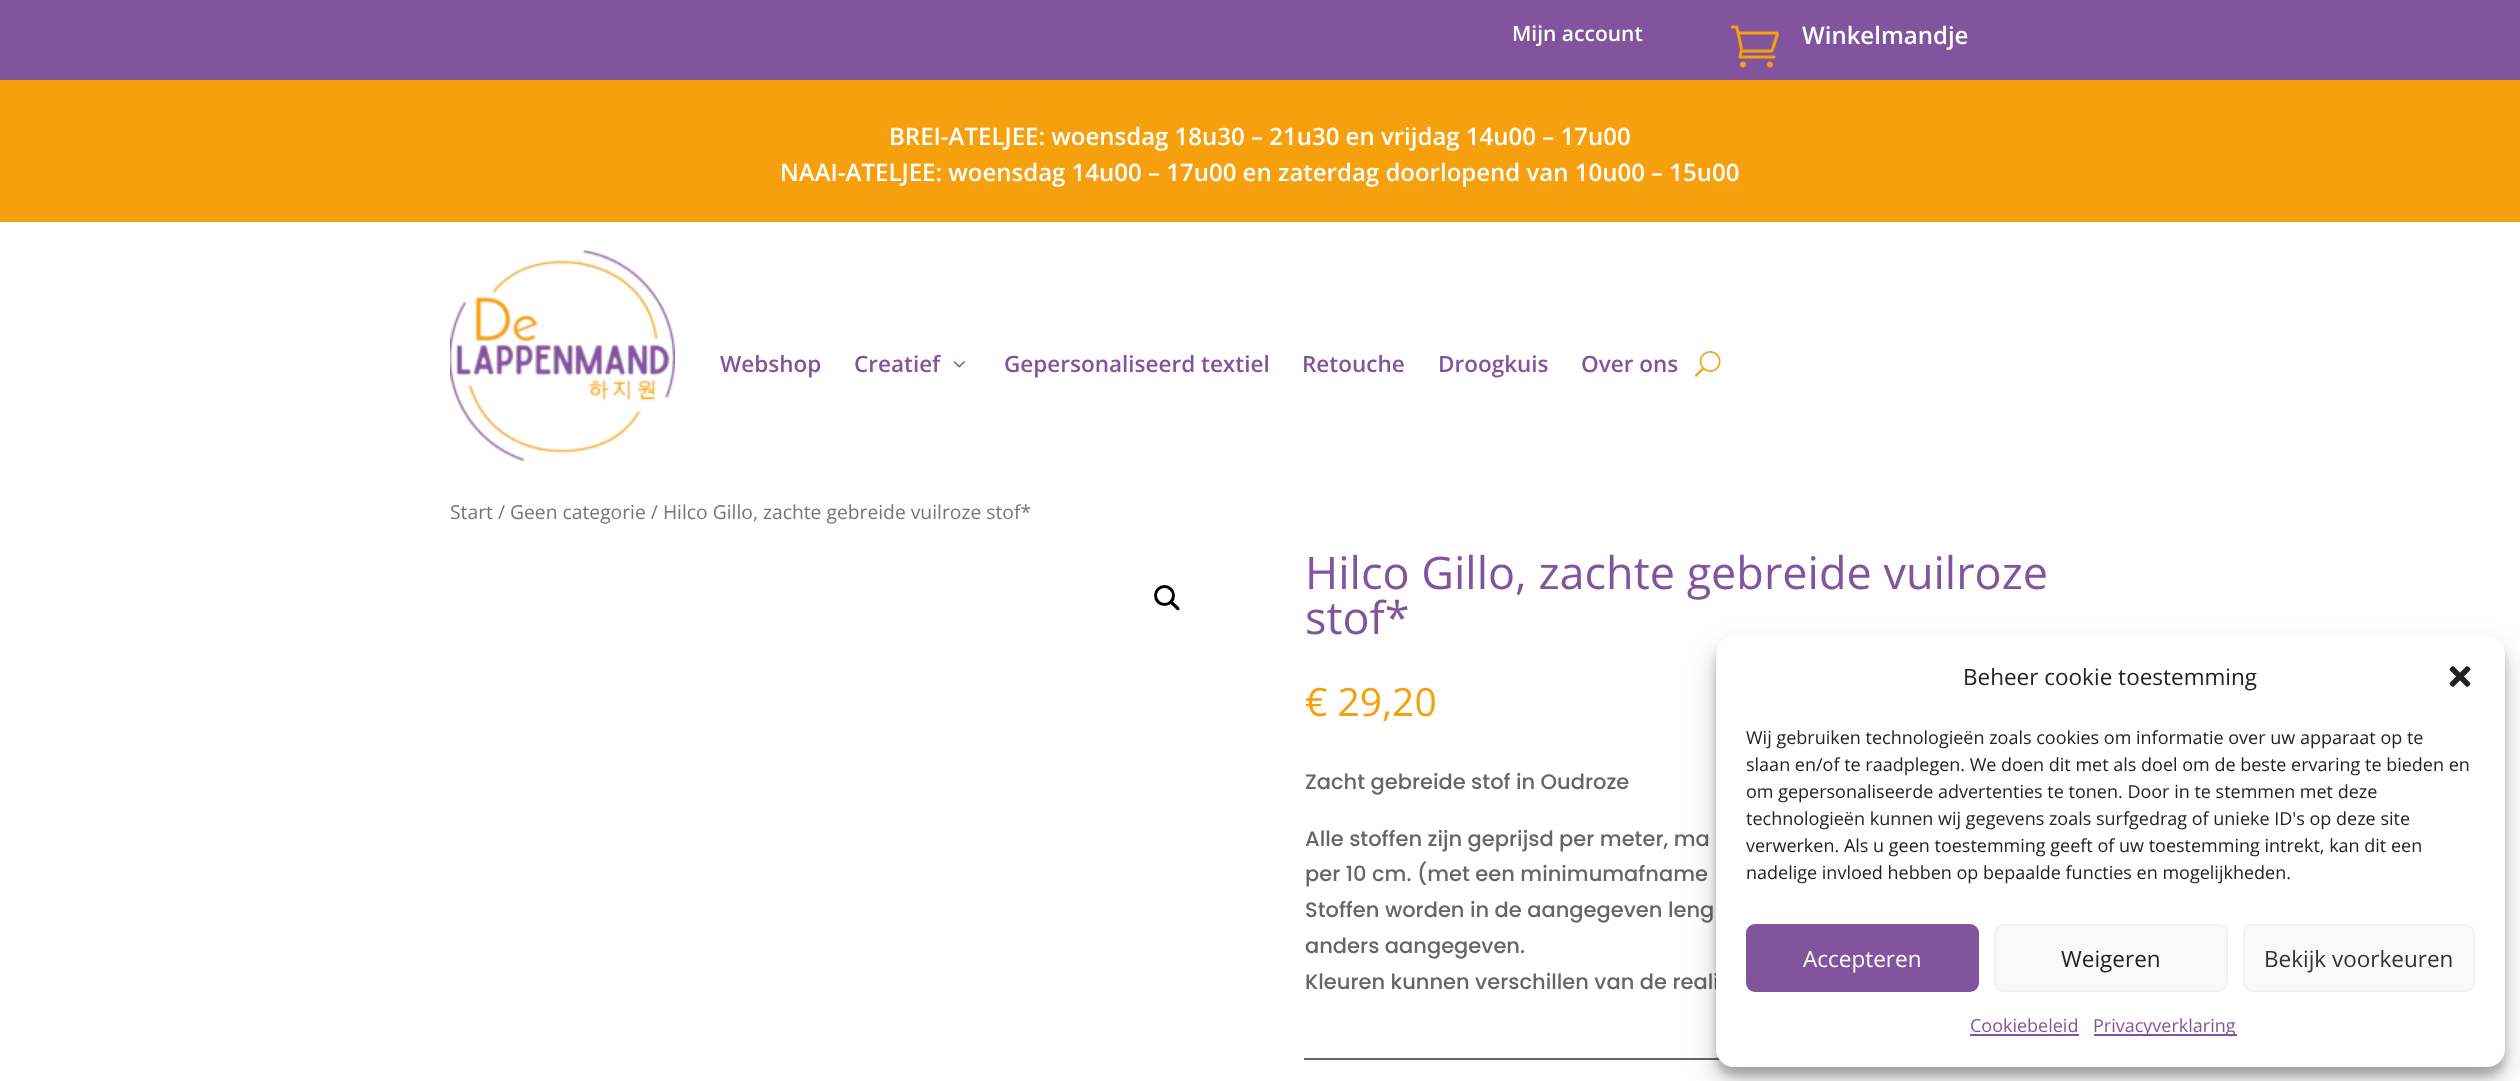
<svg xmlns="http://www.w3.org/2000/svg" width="2520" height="1081">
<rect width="100%" height="100%" fill="#fff"/>
<rect width="2520" height="80" fill="#83549e"/>
<text x="1512" y="41" style="font-family:Open Sans;font-size:21px;font-weight:600;fill:#fff">Mijn account</text>
<image x="1731" y="25" width="48" height="43" href="media/1.png"/>
<text x="1802" y="44" style="font-family:Open Sans;font-size:24px;font-weight:600;fill:#fff">Winkelmandje</text>
<rect y="80" width="2520" height="142" fill="#f6a00e"/>
<text x="889" y="145" style="font-family:Open Sans;font-size:24px;font-weight:600;fill:#fff">BREI-ATELJEE: woensdag 18u30 – 21u30 en vrijdag 14u00 – 17u00</text>
<text x="780" y="181" style="font-family:Open Sans;font-size:24px;font-weight:600;fill:#fff">NAAI-ATELJEE: woensdag 14u00 – 17u00 en zaterdag doorlopend van 10u00 – 15u00</text>
<image x="450" y="250" width="225" height="212" href="media/2.png"/>
<text x="720" y="372" style="font-family:Open Sans;font-size:22.5px;font-weight:600;fill:#83549e">Webshop</text>
<text x="854" y="372" style="font-family:Open Sans;font-size:22.5px;font-weight:600;fill:#83549e">Creatief</text>
<image x="953" y="361" width="12" height="7" href="media/3.png"/>
<text x="1004" y="372" style="font-family:Open Sans;font-size:22.5px;font-weight:600;fill:#83549e">Gepersonaliseerd textiel</text>
<text x="1302" y="372" style="font-family:Open Sans;font-size:22.5px;font-weight:600;fill:#83549e">Retouche</text>
<text x="1438" y="372" style="font-family:Open Sans;font-size:22.5px;font-weight:600;fill:#83549e">Droogkuis</text>
<text x="1581" y="372" style="font-family:Open Sans;font-size:22.5px;font-weight:600;fill:#83549e">Over ons</text>
<image x="1694" y="351" width="27" height="26" href="media/4.png"/>
<text x="450" y="519" style="font-family:Open Sans;font-size:19.3px;fill:#767676">Start / Geen categorie / Hilco Gillo, zachte gebreide vuilroze stof*</text>
<circle cx="1164.5" cy="595.5" r="9" fill="none" stroke="#000" stroke-width="3"/>
<path d="M1170.5 601.5c2-1.5 4.5 2.5 5.5 3c1 1 5 4 3 5.5c-1.5 1.5-4-2-5-3c-1-1-5-3.5-3.5-5.5z" fill="#000"/>
<text x="1305" y="589" style="font-family:Open Sans;font-size:45px;fill:#83549e">Hilco Gillo, zachte gebreide vuilroze</text>
<text x="1305" y="634" style="font-family:Open Sans;font-size:45px;fill:#83549e">stof*</text>
<text x="1305" y="716" style="font-family:Open Sans;font-size:39px;fill:#f6a00e">€ 29,20</text>
<text x="1305" y="789" style="font-family:Poppins;font-size:21px;font-weight:500;fill:#666">Zacht gebreide stof in Oudroze</text>
<text x="1305" y="846" style="font-family:Poppins;font-size:21px;font-weight:500;fill:#666">Alle stoffen zijn geprijsd per meter, ma</text>
<text x="1305" y="881" style="font-family:Poppins;font-size:21px;font-weight:500;fill:#666">per 10 cm. (met een minimumafname</text>
<text x="1305" y="917" style="font-family:Poppins;font-size:21px;font-weight:500;fill:#666">Stoffen worden in de aangegeven leng</text>
<text x="1305" y="953" style="font-family:Poppins;font-size:21px;font-weight:500;fill:#666">anders aangegeven.</text>
<text x="1305" y="989" style="font-family:Poppins;font-size:21px;font-weight:500;fill:#666">Kleuren kunnen verschillen van de reali</text>
<rect x="1304" y="1058" width="416" height="2" fill="#666"/>
<rect x="1716" y="645" width="789" height="431" rx="18" fill="#0000003b" filter="blur(4.5px)"/>
<rect x="1716" y="651" width="789" height="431" rx="18" fill="#00000030" filter="blur(15px)"/>
<rect x="1716" y="636" width="789" height="431" rx="18" fill="#fff"/>
<text x="1963" y="685" style="font-family:Open Sans;font-size:22.5px;fill:#222">Beheer cookie toestemming</text>
<image x="2449" y="666" width="22" height="21" href="media/5.png"/>
<text x="1746" y="744" style="font-family:Open Sans;font-size:18px;fill:#222">Wij gebruiken technologieën zoals cookies om informatie over uw apparaat op te</text>
<text x="1746" y="771" style="font-family:Open Sans;font-size:18px;fill:#222">slaan en/of te raadplegen. We doen dit met als doel om de beste ervaring te bieden en</text>
<text x="1746" y="798" style="font-family:Open Sans;font-size:18px;fill:#222">om gepersonaliseerde advertenties te tonen. Door in te stemmen met deze</text>
<text x="1746" y="825" style="font-family:Open Sans;font-size:18px;fill:#222">technologieën kunnen wij gegevens zoals surfgedrag of unieke ID's op deze site</text>
<text x="1746" y="852" style="font-family:Open Sans;font-size:18px;fill:#222">verwerken. Als u geen toestemming geeft of uw toestemming intrekt, kan dit een</text>
<text x="1746" y="879" style="font-family:Open Sans;font-size:18px;fill:#222">nadelige invloed hebben op bepaalde functies en mogelijkheden.</text>
<rect x="1747" y="925" width="231" height="66" rx="8" fill="#83549e" stroke="#83549e" stroke-width="2"/>
<text x="1803" y="967" style="font-family:Open Sans;font-size:22.5px;fill:#fff">Accepteren</text>
<rect x="1995" y="925" width="232" height="66" rx="8" fill="#f9f9f9" stroke="#f2f2f2" stroke-width="2"/>
<text x="2061" y="967" style="font-family:Open Sans;font-size:22.5px;fill:#222">Weigeren</text>
<rect x="2244" y="925" width="230" height="66" rx="8" fill="#f9f9f9" stroke="#f2f2f2" stroke-width="2"/>
<text x="2264" y="967" style="font-family:Open Sans;font-size:22.5px;fill:#333">Bekijk voorkeuren</text>
<text x="1970" y="1032" style="font-family:Open Sans;font-size:18px;fill:#83549e">Cookiebeleid</text>
<rect x="1970" y="1034" width="109" height="2" fill="#83549e"/>
<rect x="2094" y="1034" width="143" height="2" fill="#83549e"/>
<text x="2093" y="1032" style="font-family:Open Sans;font-size:18px;fill:#83549e">Privacyverklaring</text>
</svg>
